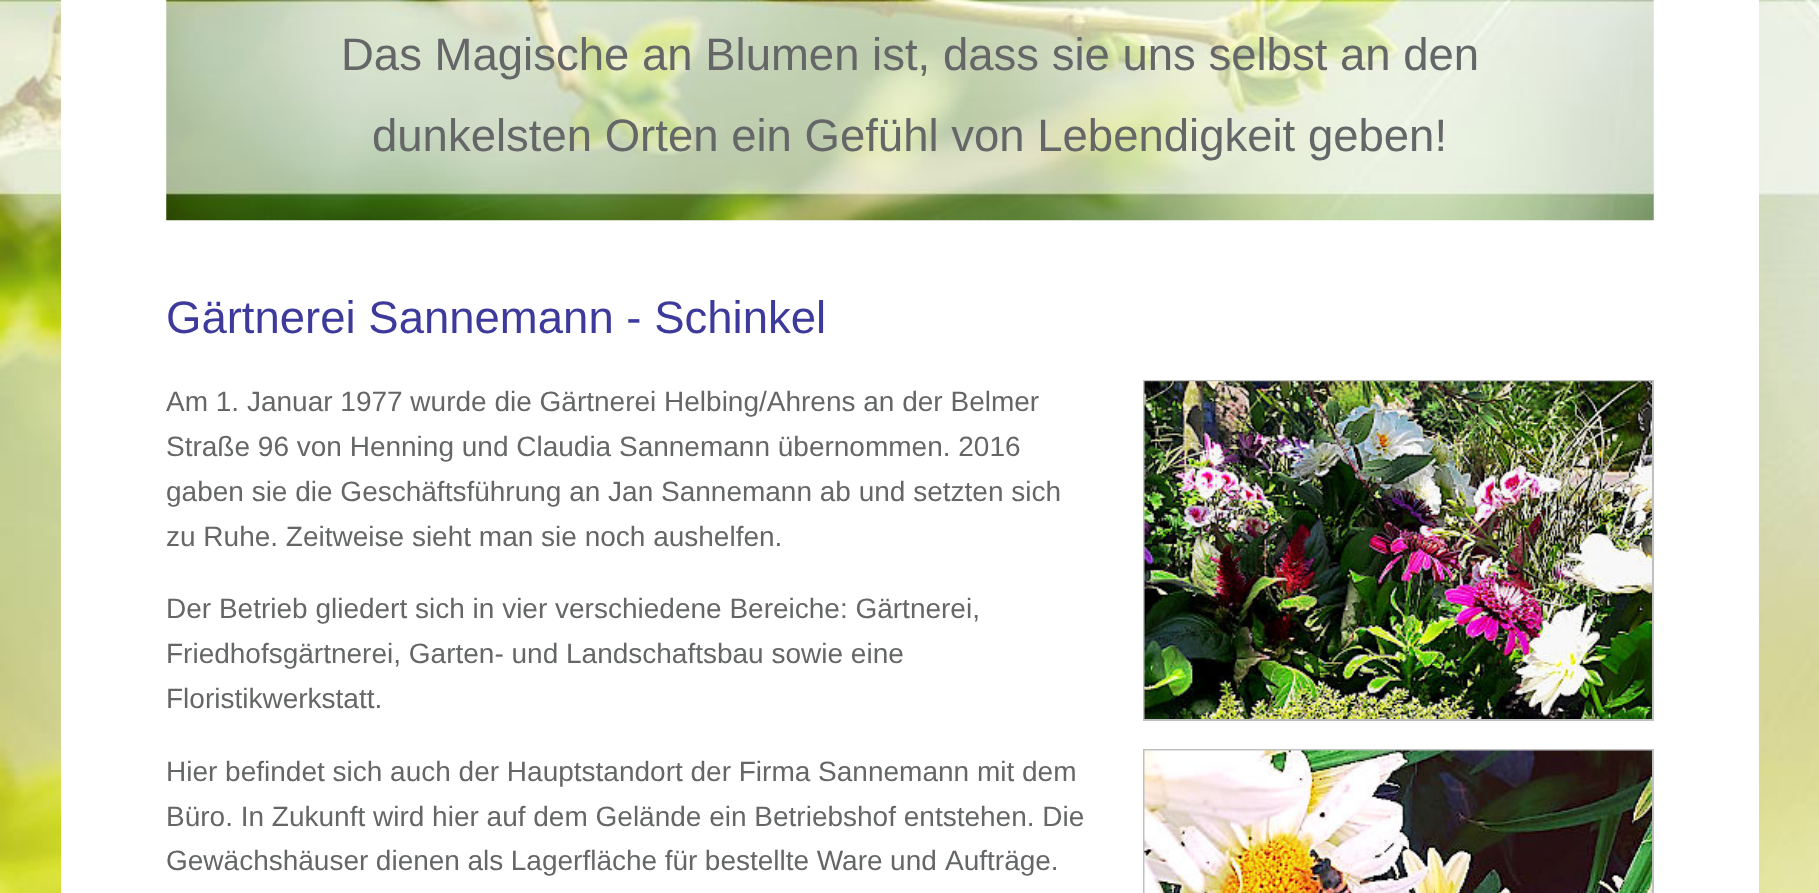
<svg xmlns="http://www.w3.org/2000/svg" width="1819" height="893">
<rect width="100%" height="100%" fill="#fff"/>
<image x="0" y="0" width="1819" height="893" href="media/1.png"/>
<rect x="61" width="1698" height="893" fill="#fff"/>
<image x="166" y="0" width="1488" height="221" href="media/2.png"/>
<text x="341" y="70" style="font-family:Liberation Sans;font-size:45.5px;fill:#656667">Das Magische an Blumen ist, dass sie uns selbst an den</text>
<text x="372" y="151" style="font-family:Liberation Sans;font-size:45.5px;fill:#656667">dunkelsten Orten ein Gefühl von Lebendigkeit geben!</text>
<text x="166" y="333" style="font-family:Liberation Sans;font-size:45.5px;fill:#3d3a9b">Gärtnerei Sannemann - Schinkel</text>
<text x="166" y="411" style="font-family:Liberation Sans;font-size:28px;fill:#656667">Am 1. Januar 1977 wurde die Gärtnerei Helbing/Ahrens an der Belmer</text>
<text x="166" y="456" style="font-family:Liberation Sans;font-size:28px;fill:#656667">Straße 96 von Henning und Claudia Sannemann übernommen. 2016</text>
<text x="166" y="501" style="font-family:Liberation Sans;font-size:28px;fill:#656667">gaben sie die Geschäftsführung an Jan Sannemann ab und setzten sich</text>
<text x="166" y="546" style="font-family:Liberation Sans;font-size:28px;fill:#656667">zu Ruhe. Zeitweise sieht man sie noch aushelfen.</text>
<text x="166" y="618" style="font-family:Liberation Sans;font-size:28px;fill:#656667">Der Betrieb gliedert sich in vier verschiedene Bereiche: Gärtnerei,</text>
<text x="166" y="663" style="font-family:Liberation Sans;font-size:28px;fill:#656667">Friedhofsgärtnerei, Garten- und Landschaftsbau sowie eine</text>
<text x="166" y="708" style="font-family:Liberation Sans;font-size:28px;fill:#656667">Floristikwerkstatt.</text>
<text x="166" y="781" style="font-family:Liberation Sans;font-size:28px;fill:#656667">Hier befindet sich auch der Hauptstandort der Firma Sannemann mit dem</text>
<text x="166" y="826" style="font-family:Liberation Sans;font-size:28px;fill:#656667">Büro. In Zukunft wird hier auf dem Gelände ein Betriebshof entstehen. Die</text>
<text x="166" y="870" word-spacing="-0.25" style="font-family:Liberation Sans;font-size:28px;fill:#656667">Gewächshäuser dienen als Lagerfläche für bestellte Ware und</text>
<text x="945" y="870" style="font-family:Liberation Sans;font-size:28px;fill:#656667">Aufträge.</text>
<rect x="1144" y="381" width="509" height="339" fill="none" stroke="#c0c0c0" stroke-width="2"/>
<image x="1144" y="381" width="508" height="338" href="media/3.png"/>
<rect x="1144" y="750" width="509" height="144" fill="none" stroke="#c0c0c0" stroke-width="2"/>
<image x="1144" y="750" width="508" height="143" href="media/4.png"/>
</svg>
